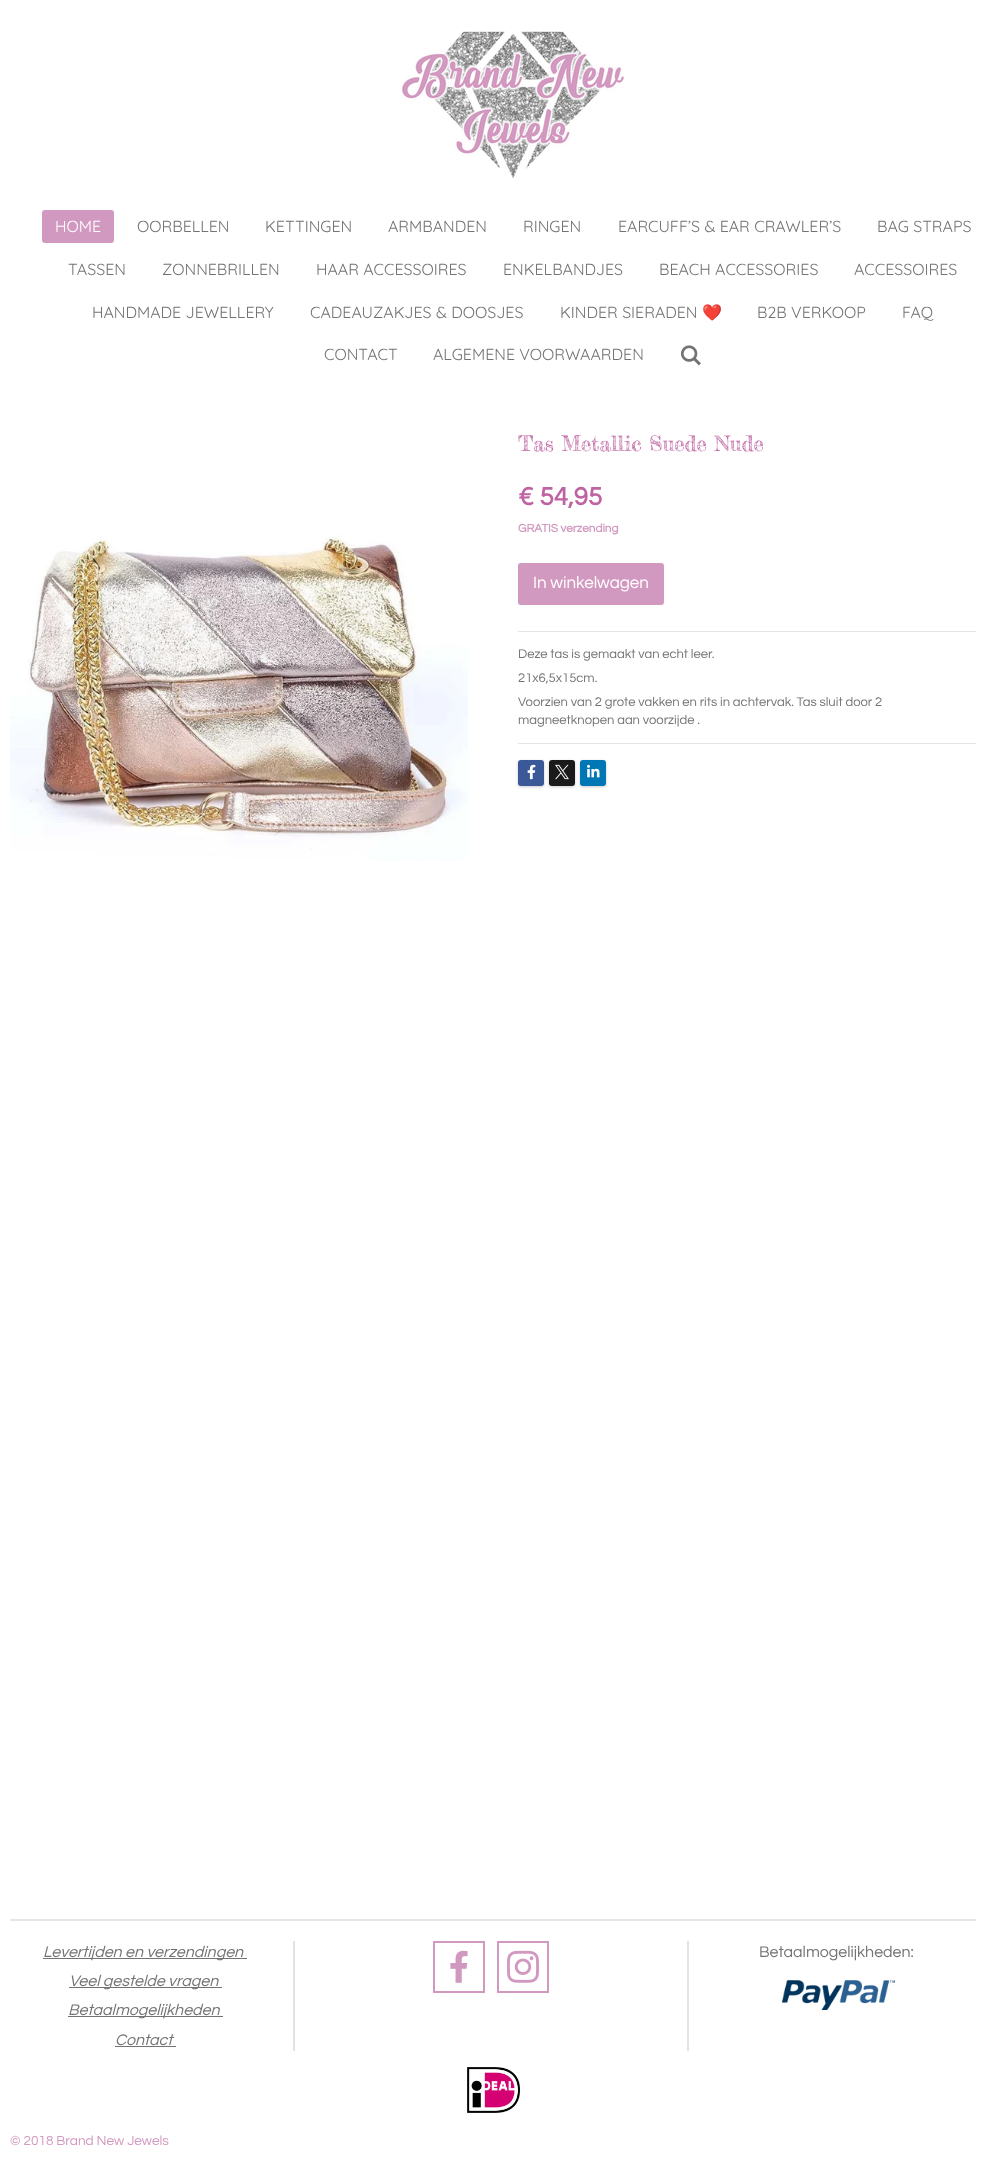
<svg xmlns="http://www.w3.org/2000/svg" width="986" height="2172">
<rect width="100%" height="100%" fill="#fff"/>
<image x="401" y="31" width="223" height="147" href="media/1.png"/>
<rect x="42" y="210" width="72" height="33" rx="3" fill="#d299c0"/>
<text x="55" y="232" style="font-family:Quicksand;font-size:16px;fill:#fff">HOME</text>
<text x="137" y="232" style="font-family:Quicksand;font-size:16px;fill:#737373">OORBELLEN</text>
<text x="265" y="232" style="font-family:Quicksand;font-size:16px;fill:#737373">KETTINGEN</text>
<text x="388" y="232" style="font-family:Quicksand;font-size:16px;fill:#737373">ARMBANDEN</text>
<text x="523" y="232" style="font-family:Quicksand;font-size:16px;fill:#737373">RINGEN</text>
<text x="618" y="232" style="font-family:Quicksand;font-size:16px;fill:#737373">EARCUFF’S &amp; EAR CRAWLER’S</text>
<text x="877" y="232" style="font-family:Quicksand;font-size:16px;fill:#737373">BAG STRAPS</text>
<text x="68" y="275" style="font-family:Quicksand;font-size:16px;fill:#737373">TASSEN</text>
<text x="162" y="275" style="font-family:Quicksand;font-size:16px;fill:#737373">ZONNEBRILLEN</text>
<text x="316" y="275" style="font-family:Quicksand;font-size:16px;fill:#737373">HAAR ACCESSOIRES</text>
<text x="503" y="275" style="font-family:Quicksand;font-size:16px;fill:#737373">ENKELBANDJES</text>
<text x="659" y="275" style="font-family:Quicksand;font-size:16px;fill:#737373">BEACH ACCESSORIES</text>
<text x="854" y="275" style="font-family:Quicksand;font-size:16px;fill:#737373">ACCESSOIRES</text>
<text x="92" y="318" style="font-family:Quicksand;font-size:16px;fill:#737373">HANDMADE JEWELLERY</text>
<text x="310" y="318" style="font-family:Quicksand;font-size:16px;fill:#737373">CADEAUZAKJES &amp; DOOSJES</text>
<text x="560" y="318" style="font-family:Quicksand;font-size:16px;fill:#737373">KINDER SIERADEN</text>
<text x="702" y="318" style="font-family:Noto Color Emoji;font-size:16px;fill:#737373">❤️</text>
<text x="757" y="318" style="font-family:Quicksand;font-size:16px;fill:#737373">B2B VERKOOP</text>
<text x="902" y="318" style="font-family:Quicksand;font-size:16px;fill:#737373">FAQ</text>
<text x="324" y="360" style="font-family:Quicksand;font-size:16px;fill:#737373">CONTACT</text>
<text x="433" y="360" style="font-family:Quicksand;font-size:16px;fill:#737373">ALGEMENE VOORWAARDEN</text>
<image x="681" y="345" width="20" height="21" href="media/2.png"/>
<text x="518" y="451" style="font-family:Fredericka the Great;font-size:21px;fill:#bf64a2">Tas Metallic Suede Nude</text>
<image x="10" y="535" width="458" height="326" href="media/3.png"/>
<text x="518" y="505" style="font-family:Questrial;font-size:26px;font-weight:bold;fill:#bf64a2">€ 54,95</text>
<text x="518" y="532" style="font-family:Questrial;font-size:11.75px;font-weight:bold;fill:#d299c0">GRATIS verzending</text>
<rect x="518" y="563" width="146" height="42" rx="3" fill="#d299c0"/>
<text x="533" y="588" style="font-family:Questrial;font-size:17px;fill:#fff">In winkelwagen</text>
<rect x="518" y="631" width="458" height="1" fill="#e3e3e3"/>
<text x="518" y="658" style="font-family:Questrial;font-size:13px;fill:#737373">Deze tas is gemaakt van echt leer.</text>
<text x="518" y="682" style="font-family:Questrial;font-size:13px;fill:#737373">21x6,5x15cm.</text>
<text x="518" y="706" style="font-family:Questrial;font-size:13px;fill:#737373">Voorzien van 2 grote vakken en rits in achtervak. Tas sluit door 2</text>
<text x="518" y="724" style="font-family:Questrial;font-size:13px;fill:#737373">magneetknopen aan voorzijde .</text>
<rect x="518" y="743" width="458" height="1" fill="#e3e3e3"/>
<rect x="518" y="761" width="26" height="26" rx="3" fill="#00000033" filter="blur(1.5px)"/>
<rect x="518" y="760" width="26" height="26" rx="3" fill="#3b5998"/>
<image x="527" y="764" width="9" height="16" href="media/4.png"/>
<rect x="549" y="761" width="26" height="26" rx="3" fill="#00000033" filter="blur(1.5px)"/>
<rect x="549" y="760" width="26" height="26" rx="3" fill="#1a1a1a"/>
<image x="555" y="764" width="14" height="16" href="media/5.png"/>
<rect x="580" y="761" width="26" height="26" rx="3" fill="#00000033" filter="blur(1.5px)"/>
<rect x="580" y="760" width="26" height="26" rx="3" fill="#0077b5"/>
<image x="587" y="764" width="13" height="14" href="media/6.png"/>
<rect x="10" y="1919" width="966" height="2" fill="#e6e6e6"/>
<rect x="293" y="1941" width="2" height="110" fill="#e3e3e3"/>
<rect x="43" y="1958" width="204" height="1" fill="#737373"/>
<text x="43" y="1957" style="font-family:Questrial;font-size:16px;font-style:italic;fill:#737373">Levertijden en verzendingen</text>
<rect x="69" y="1987" width="153" height="1" fill="#737373"/>
<text x="69" y="1986" style="font-family:Questrial;font-size:16px;font-style:italic;fill:#737373">Veel gestelde vragen</text>
<rect x="68" y="2016" width="155" height="1" fill="#737373"/>
<text x="68" y="2015" style="font-family:Questrial;font-size:16px;font-style:italic;fill:#737373">Betaalmogelijkheden</text>
<text x="115" y="2045" style="font-family:Questrial;font-size:16px;font-style:italic;fill:#737373">Contact</text>
<rect x="115" y="2046" width="61" height="1" fill="#737373"/>
<rect x="687" y="1941" width="2" height="110" fill="#e3e3e3"/>
<rect x="434" y="1942" width="50" height="50" fill="none" stroke="#d299c0" stroke-width="2"/>
<image x="450" y="1950" width="18" height="33" href="media/7.png"/>
<rect x="498" y="1942" width="50" height="50" fill="none" stroke="#d299c0" stroke-width="2"/>
<image x="507" y="1950" width="32" height="33" href="media/8.png"/>
<text x="759" y="1957" style="font-family:Questrial;font-size:16px;fill:#737373">Betaalmogelijkheden:</text>
<image x="782" y="1980" width="113" height="30" href="media/9.png"/>
<image x="467" y="2067" width="53" height="46" href="media/10.png"/>
<text x="10" y="2145" style="font-family:Questrial;font-size:13.6px;fill:#d299c0">© 2018 Brand New Jewels</text>
</svg>
